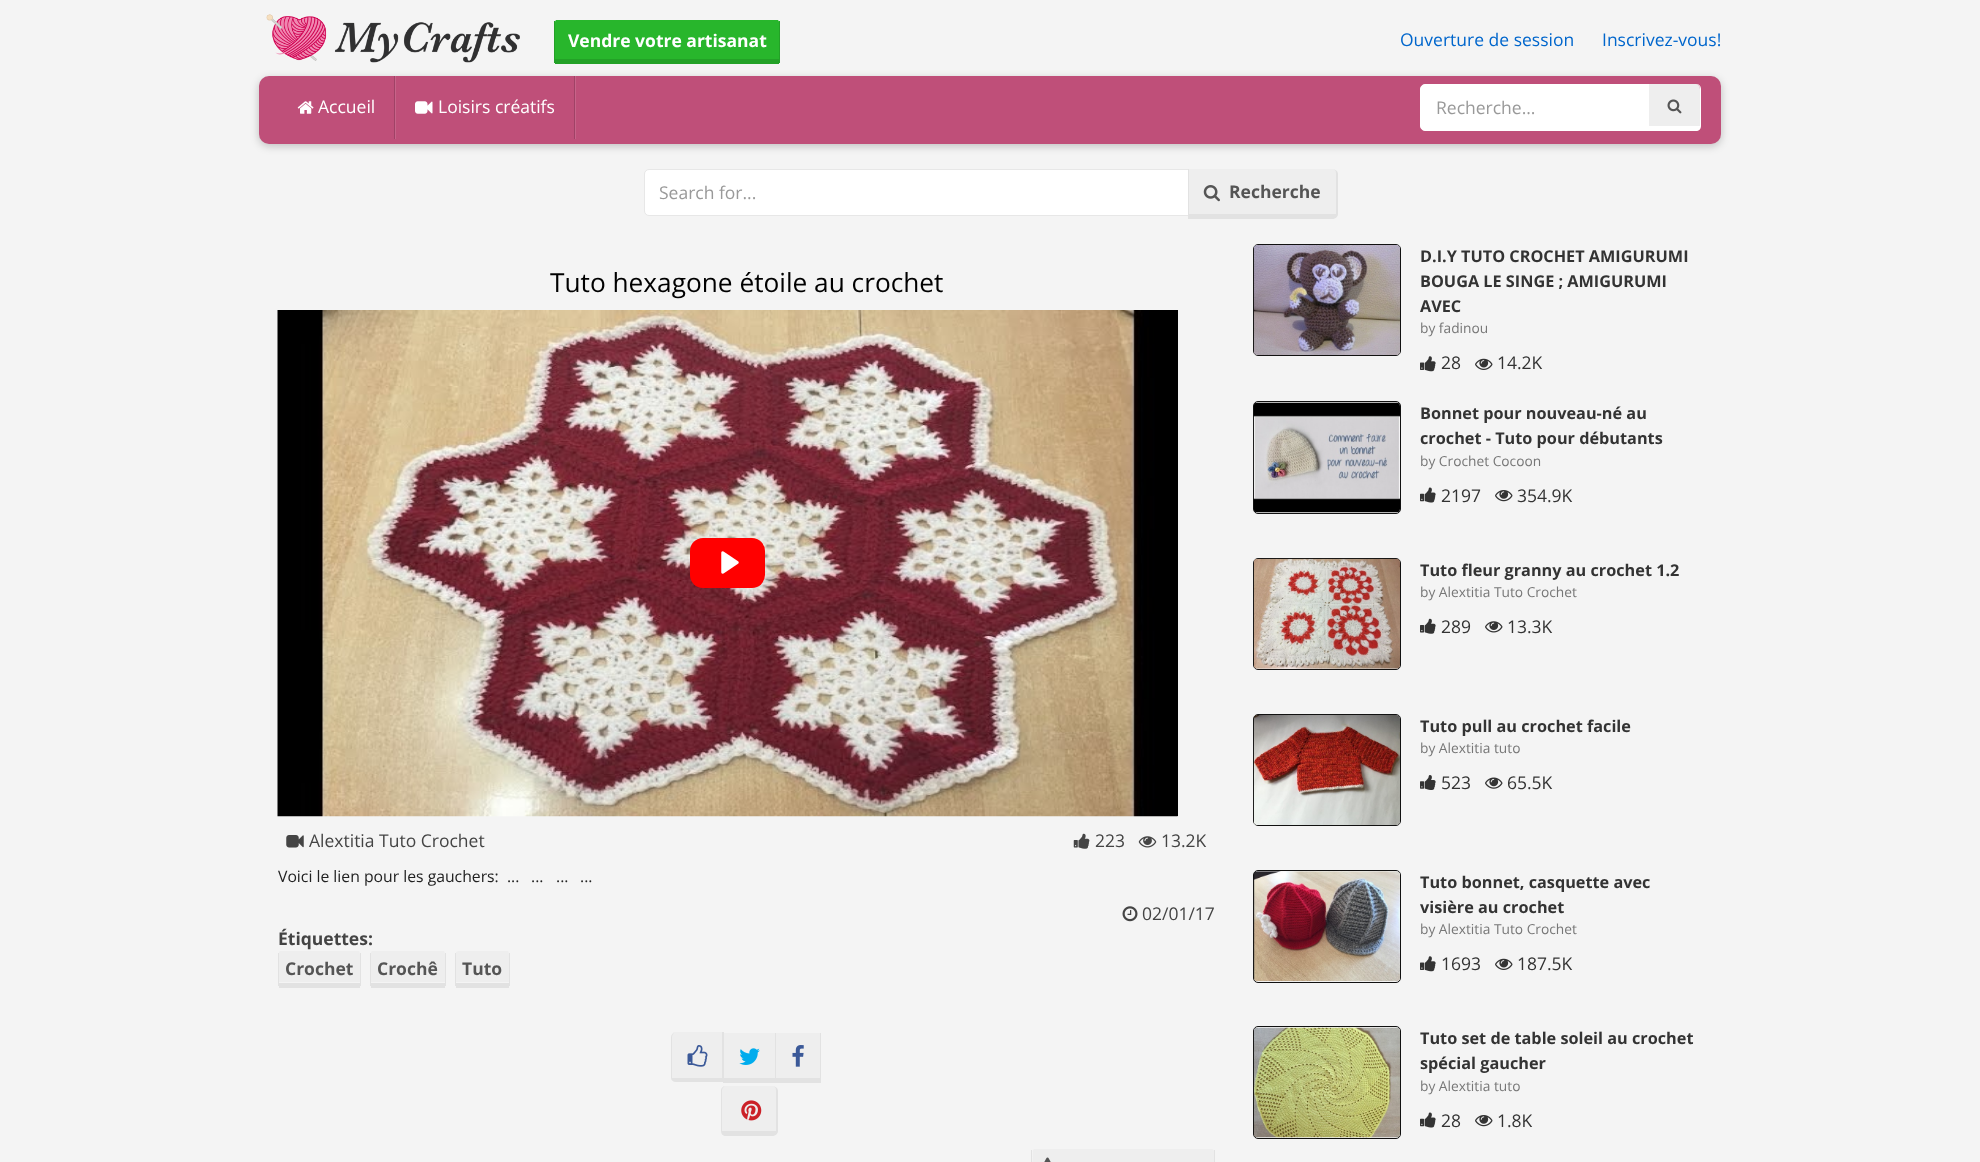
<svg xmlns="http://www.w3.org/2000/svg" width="1980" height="1162">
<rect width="100%" height="100%" fill="#f4f4f4"/>
<image x="266" y="14" width="254" height="49" href="media/1.png"/>
<path d="M556 20h222c0 0 1 1 1 2v37h-224v-37c0-1 1-2 1-2z" fill="#28b62c"/>
<rect x="779" y="21" width="1" height="42" fill="#23a127"/>
<rect x="555" y="59" width="224" height="5" fill="#23a127"/>
<rect x="554" y="21" width="1" height="42" fill="#23a127"/>
<text x="568" y="47" style="font-family:Open Sans;font-size:17.5px;font-weight:bold;fill:#fff">Vendre votre artisanat</text>
<text x="1400" y="46" style="font-family:Open Sans;font-size:17.5px;fill:#06c">Ouverture de session</text>
<text x="1602" y="46" style="font-family:Open Sans;font-size:17.5px;fill:#06c">Inscrivez-vous!</text>
<rect x="259" y="79" width="1462" height="67" rx="10" fill="#00000038" filter="blur(4px)"/>
<rect x="259" y="76" width="1462" height="68" rx="10" fill="#bf4f79"/>
<rect x="394" y="76" width="1" height="63" fill="#a04266"/>
<image x="297" y="101" width="17" height="13" href="media/2.png"/>
<text x="318" y="113" style="font-family:Open Sans;font-size:17.5px;fill:#fff">Accueil</text>
<rect x="574" y="76" width="1" height="63" fill="#a04266"/>
<rect x="395" y="76" width="1" height="63" fill="#c76489"/>
<image x="415" y="101" width="18" height="13" href="media/3.png"/>
<text x="438" y="113" style="font-family:Open Sans;font-size:17.5px;fill:#fff">Loisirs créatifs</text>
<rect x="575" y="76" width="1" height="63" fill="#c76489"/>
<path d="M1425 84.5h223.5v46h-223.5c-2.5 0-4.5-2-4.5-4.5v-37c0-2.5 2-4.5 4.5-4.5z" fill="#fff" stroke="#fff"/>
<text x="1436" y="114" style="font-family:Open Sans;font-size:17.5px;fill:#999">Recherche...</text>
<path d="M1649 84h47c2 0 4 2 4 5v37h-51z" fill="#eee"/>
<path d="M1648 84h48c3 0 5 2 5 5v37c0 3-2 5-5 5h-48zm1 0h47c2 0 4 2 4 5v37h-51z" fill="#fff" fill-rule="evenodd"/>
<image x="1667" y="99" width="15" height="15" href="media/4.png"/>
<path d="M649 169.5h539.5v46h-539.5c-2.5 0-4.5-2-4.5-4.5v-37c0-2.5 2-4.5 4.5-4.5z" fill="#fff" stroke="#e7e7e7"/>
<text x="659" y="199" style="font-family:Open Sans;font-size:17.5px;fill:#999">Search for...</text>
<path d="M1189 169h143c3 0 4 2 4 5v40h-147z" fill="#eee"/>
<path d="M1188 169h144c3 0 6 2 6 5v40c0 3-3 5-6 5h-144zm1 0h143c3 0 4 2 4 5v40h-147z" fill="#e2e2e2" fill-rule="evenodd"/>
<image x="1203" y="185" width="17" height="17" href="media/5.png"/>
<text x="1229" y="198" style="font-family:Open Sans;font-size:17.5px;font-weight:bold;fill:#555">Recherche</text>
<text x="550" y="292" style="font-family:Open Sans;font-size:26.25px;fill:#000">Tuto hexagone étoile au crochet</text>
<rect x="1177" y="310" width="1" height="506" fill="#000"/>
<image x="277" y="310" width="901" height="507" href="media/6.png"/>
<rect x="690" y="538" width="75" height="50" rx="13" fill="#f00"/>
<image x="721" y="551" width="18" height="23" href="media/7.png"/>
<image x="286" y="835" width="18" height="13" href="media/8.png"/>
<text x="309" y="847" style="font-family:Open Sans;font-size:17.5px;fill:#444">Alextitia Tuto Crochet</text>
<image x="1073" y="833" width="17" height="16" href="media/9.png"/>
<text x="1095" y="847" style="font-family:Open Sans;font-size:17.5px;fill:#444">223</text>
<image x="1138" y="836" width="19" height="12" href="media/10.png"/>
<text x="1161" y="847" style="font-family:Open Sans;font-size:17.5px;fill:#444">13.2K</text>
<text x="278" y="882" style="font-family:Open Sans;font-size:15.75px;fill:#222" xml:space="preserve">Voici le lien pour les gauchers:  ...</text>
<text x="531" y="882" style="font-family:Open Sans;font-size:15.75px;fill:#222">...</text>
<text x="556" y="882" style="font-family:Open Sans;font-size:15.75px;fill:#222">...</text>
<text x="580" y="882" style="font-family:Open Sans;font-size:15.75px;fill:#222">...</text>
<image x="1122" y="906" width="16" height="16" href="media/11.png"/>
<text x="1142" y="920" style="font-family:Open Sans;font-size:17.5px;fill:#444">02/01/17</text>
<text x="278" y="945" style="font-family:Open Sans;font-size:17.5px;font-weight:bold;fill:#444">Étiquettes:</text>
<path d="M280 951h79c0 0 1 1 1 3v28h-81v-30z" fill="#eee"/>
<rect x="360" y="953" width="1" height="33" fill="#e2e2e2"/>
<rect x="279" y="983" width="81" height="5" fill="#e2e2e2"/>
<rect x="278" y="953" width="1" height="33" fill="#e2e2e2"/>
<text x="285" y="975" style="font-family:Open Sans;font-size:17.5px;font-weight:bold;fill:#555">Crochet</text>
<path d="M372 951h72c0 0 1 1 1 3v28h-74v-30z" fill="#eee"/>
<rect x="445" y="953" width="1" height="33" fill="#e2e2e2"/>
<rect x="371" y="983" width="74" height="5" fill="#e2e2e2"/>
<rect x="370" y="953" width="1" height="33" fill="#e2e2e2"/>
<text x="377" y="975" style="font-family:Open Sans;font-size:17.5px;font-weight:bold;fill:#555">Crochê</text>
<path d="M458 951h50c0 0 1 1 1 3v28h-53v-30z" fill="#eee"/>
<rect x="509" y="953" width="1" height="33" fill="#e2e2e2"/>
<rect x="456" y="983" width="53" height="5" fill="#e2e2e2"/>
<rect x="455" y="953" width="1" height="33" fill="#e2e2e2"/>
<text x="462" y="975" style="font-family:Open Sans;font-size:17.5px;font-weight:bold;fill:#555">Tuto</text>
<path d="M676 1032h46v46h-50v-40c0-3 2-6 4-6z" fill="#eee"/>
<path d="M676 1032h48v50h-48c-3 0-5-2-5-4v-40c0-3 2-6 5-6zm0 0h46v46h-50v-40c0-3 2-6 4-6z" fill="#e2e2e2" fill-rule="evenodd"/>
<image x="687" y="1045" width="21" height="22" href="media/12.png"/>
<rect x="724" y="1033" width="51" height="45" fill="#eee"/>
<rect x="775" y="1033" width="1" height="50" fill="#e2e2e2"/>
<rect x="723" y="1078" width="53" height="5" fill="#e2e2e2"/>
<image x="739" y="1048" width="21" height="17" href="media/13.png"/>
<rect x="776" y="1033" width="44" height="45" fill="#eee"/>
<rect x="820" y="1033" width="1" height="50" fill="#e2e2e2"/>
<rect x="775" y="1078" width="46" height="5" fill="#e2e2e2"/>
<image x="792" y="1045" width="12" height="22" href="media/14.png"/>
<path d="M726 1086h46c3 0 4 2 4 5v40h-54v-40c0-3 2-5 4-5z" fill="#eee"/>
<path d="M726 1086h46c3 0 6 2 6 5v40c0 3-3 5-6 5h-46c-3 0-5-2-5-5v-40c0-3 2-5 5-5zm0 0h46c3 0 4 2 4 5v40h-54v-40c0-3 2-5 4-5z" fill="#e2e2e2" fill-rule="evenodd"/>
<image x="741" y="1100" width="21" height="21" href="media/15.png"/>
<path d="M1034 1149h178c1 0 2 1 2 2v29h-182l1-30z" fill="#eee"/>
<rect x="1214" y="1150" width="1" height="12" fill="#e2e2e2"/>
<rect x="1031" y="1150" width="1" height="12" fill="#e2e2e2"/>
<image x="1044" y="1157" width="7" height="5" href="media/16.png"/>
<rect x="1253.5" y="244.5" width="147" height="111" rx="4.5" fill="none" stroke="#111"/>
<image x="1253" y="245" width="147" height="110" href="media/17.png"/>
<text x="1420" y="262" style="font-family:Open Sans;font-size:16.25px;font-weight:bold;fill:#333">D.I.Y TUTO CROCHET AMIGURUMI</text>
<text x="1420" y="287" style="font-family:Open Sans;font-size:16.25px;font-weight:bold;fill:#333">BOUGA LE SINGE ; AMIGURUMI</text>
<text x="1420" y="312" style="font-family:Open Sans;font-size:16.25px;font-weight:bold;fill:#333">AVEC</text>
<text x="1420" y="333" style="font-family:Open Sans;font-size:13.75px;fill:#777">by fadinou</text>
<image x="1420" y="356" width="16" height="16" href="media/18.png"/>
<text x="1441" y="369" style="font-family:Open Sans;font-size:17.5px;fill:#333">28</text>
<image x="1475" y="358" width="18" height="12" href="media/19.png"/>
<text x="1497" y="369" style="font-family:Open Sans;font-size:17.5px;fill:#333">14.2K</text>
<rect x="1253.5" y="401.5" width="147" height="112" rx="4.5" fill="none" stroke="#111"/>
<image x="1253" y="402" width="147" height="111" href="media/20.png"/>
<text x="1420" y="419" style="font-family:Open Sans;font-size:16.25px;font-weight:bold;fill:#333">Bonnet pour nouveau-né au</text>
<text x="1420" y="444" style="font-family:Open Sans;font-size:16.25px;font-weight:bold;fill:#333">crochet - Tuto pour débutants</text>
<text x="1420" y="466" style="font-family:Open Sans;font-size:13.75px;fill:#777">by Crochet Cocoon</text>
<image x="1420" y="487" width="16" height="16" href="media/21.png"/>
<text x="1441" y="502" style="font-family:Open Sans;font-size:17.5px;fill:#333">2197</text>
<image x="1495" y="490" width="18" height="12" href="media/22.png"/>
<text x="1517" y="502" style="font-family:Open Sans;font-size:17.5px;fill:#333">354.9K</text>
<rect x="1253.5" y="558.5" width="147" height="111" rx="4.5" fill="none" stroke="#111"/>
<image x="1253" y="558" width="147" height="111" href="media/23.png"/>
<text x="1420" y="576" style="font-family:Open Sans;font-size:16.25px;font-weight:bold;fill:#333">Tuto fleur granny au crochet 1.2</text>
<text x="1420" y="597" style="font-family:Open Sans;font-size:13.75px;fill:#777">by Alextitia Tuto Crochet</text>
<image x="1420" y="618" width="16" height="16" href="media/24.png"/>
<text x="1441" y="633" style="font-family:Open Sans;font-size:17.5px;fill:#333">289</text>
<image x="1485" y="621" width="18" height="12" href="media/25.png"/>
<text x="1507" y="633" style="font-family:Open Sans;font-size:17.5px;fill:#333">13.3K</text>
<rect x="1253.5" y="714.5" width="147" height="111" rx="4.5" fill="none" stroke="#111"/>
<image x="1253" y="715" width="147" height="110" href="media/26.png"/>
<text x="1420" y="732" style="font-family:Open Sans;font-size:16.25px;font-weight:bold;fill:#333">Tuto pull au crochet facile</text>
<text x="1420" y="753" style="font-family:Open Sans;font-size:13.75px;fill:#777">by Alextitia tuto</text>
<image x="1420" y="775" width="16" height="15" href="media/27.png"/>
<text x="1441" y="789" style="font-family:Open Sans;font-size:17.5px;fill:#333">523</text>
<image x="1485" y="777" width="18" height="12" href="media/28.png"/>
<text x="1507" y="789" style="font-family:Open Sans;font-size:17.5px;fill:#333">65.5K</text>
<rect x="1253.5" y="870.5" width="147" height="112" rx="4.5" fill="none" stroke="#111"/>
<image x="1253" y="871" width="147" height="111" href="media/29.png"/>
<text x="1420" y="888" style="font-family:Open Sans;font-size:16.25px;font-weight:bold;fill:#333">Tuto bonnet, casquette avec</text>
<text x="1420" y="913" style="font-family:Open Sans;font-size:16.25px;font-weight:bold;fill:#333">visière au crochet</text>
<text x="1420" y="934" style="font-family:Open Sans;font-size:13.75px;fill:#777">by Alextitia Tuto Crochet</text>
<image x="1420" y="956" width="16" height="16" href="media/18.png"/>
<text x="1441" y="970" style="font-family:Open Sans;font-size:17.5px;fill:#333">1693</text>
<image x="1495" y="958" width="18" height="12" href="media/19.png"/>
<text x="1517" y="970" style="font-family:Open Sans;font-size:17.5px;fill:#333">187.5K</text>
<rect x="1253.5" y="1026.5" width="147" height="112" rx="4.5" fill="none" stroke="#111"/>
<image x="1253" y="1027" width="147" height="111" href="media/30.png"/>
<text x="1420" y="1044" style="font-family:Open Sans;font-size:16.25px;font-weight:bold;fill:#333">Tuto set de table soleil au crochet</text>
<text x="1420" y="1069" style="font-family:Open Sans;font-size:16.25px;font-weight:bold;fill:#333">spécial gaucher</text>
<text x="1420" y="1091" style="font-family:Open Sans;font-size:13.75px;fill:#777">by Alextitia tuto</text>
<image x="1420" y="1112" width="16" height="16" href="media/21.png"/>
<text x="1441" y="1127" style="font-family:Open Sans;font-size:17.5px;fill:#333">28</text>
<image x="1475" y="1115" width="18" height="12" href="media/22.png"/>
<text x="1497" y="1127" style="font-family:Open Sans;font-size:17.5px;fill:#333">1.8K</text>
</svg>
